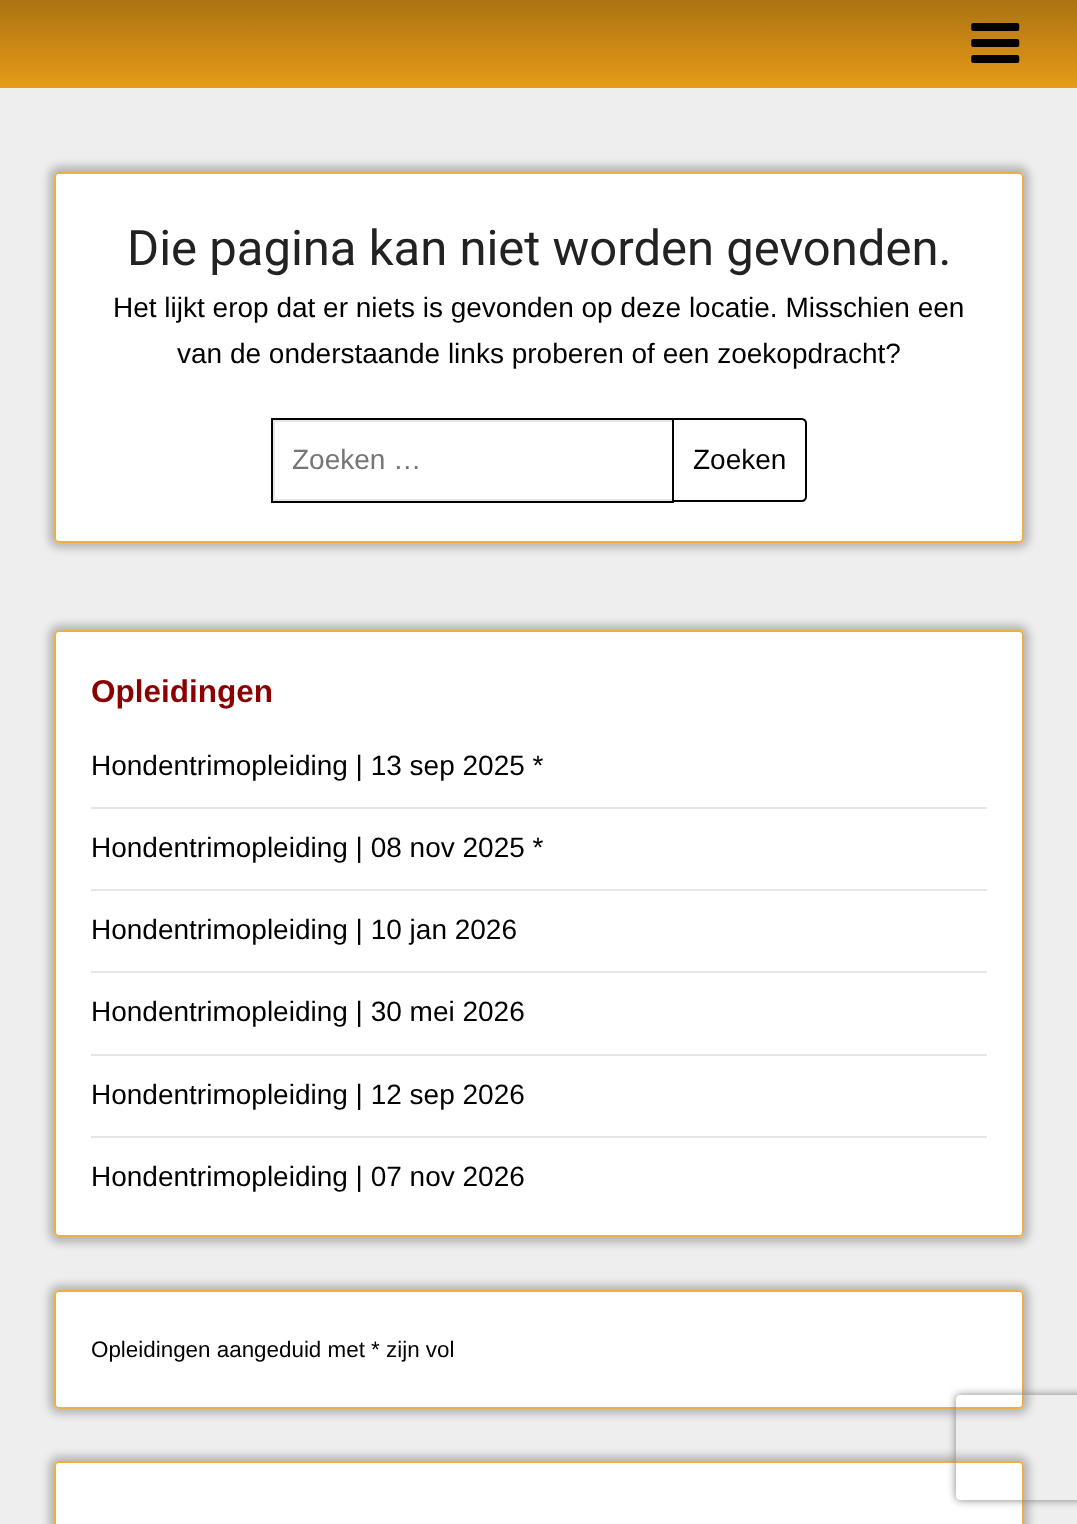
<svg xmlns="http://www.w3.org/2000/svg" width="1077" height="1524">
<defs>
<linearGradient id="g1" gradientUnits="userSpaceOnUse" x1="539" y1="0" x2="539" y2="88"><stop offset="0" stop-color="#ab7312"/><stop offset="1" stop-color="#e79b18"/></linearGradient>
<clipPath id="clip1"><path d="M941 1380h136v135h-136zm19 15h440c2 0 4 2 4 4v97c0 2-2 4-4 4h-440c-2 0-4-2-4-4v-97c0-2 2-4 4-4z" clip-rule="evenodd"/></clipPath>
</defs>
<rect width="100%" height="100%" fill="#eee"/>
<rect width="1077" height="88" fill="url(#g1)"/>
<image x="971" y="23" width="49" height="40" href="media/1.png"/>
<rect x="49" y="166" width="980" height="382" rx="11" fill="#0000003d" filter="blur(4.5px)"/>
<rect x="54" y="172" width="970" height="371" rx="5" fill="#fff"/>
<rect x="55" y="173" width="968" height="369" rx="4" fill="none" stroke="#e79b18cc" stroke-width="2"/>
<text x="127" y="265" style="font-family:Roboto;font-size:49px;fill:#222">Die pagina kan niet worden gevonden.</text>
<text x="113" y="317" style="font-family:Liberation Sans;font-size:28px;fill:#000">Het lijkt erop dat er niets is gevonden op deze locatie. Misschien een</text>
<text x="177" y="363" style="font-family:Liberation Sans;font-size:28px;fill:#000">van de onderstaande links proberen of een zoekopdracht?</text>
<rect x="271" y="418" width="403" height="2" fill="#000"/>
<rect x="271" y="501" width="403" height="2" fill="#000"/>
<rect x="271" y="418" width="2" height="84" fill="#000"/>
<rect x="274" y="421" width="399" height="79" fill="none" stroke="#e5e6e9" stroke-width="2"/>
<text x="292" y="469" style="font-family:Liberation Sans;font-size:28px;fill:#757575">Zoeken …</text>
<path d="M673 419h129c2 0 4 2 4 4v74c0 2-2 4-4 4h-129z" fill="none" stroke="#000" stroke-width="2"/>
<text x="693" y="469" style="font-family:Liberation Sans;font-size:28px;fill:#000">Zoeken</text>
<rect x="49" y="625" width="980" height="618" rx="11" fill="#0000003d" filter="blur(4.5px)"/>
<rect x="54" y="630" width="970" height="607" rx="5" fill="#fff"/>
<rect x="55" y="631" width="968" height="605" rx="4" fill="none" stroke="#e79b18cc" stroke-width="2"/>
<text x="91" y="702" style="font-family:Liberation Sans;font-size:31.5px;font-weight:bold;fill:#8b0000">Opleidingen</text>
<rect x="91" y="807" width="896" height="2" fill="#e6e6e6"/>
<text x="91" y="775" style="font-family:Liberation Sans;font-size:28px;fill:#000">Hondentrimopleiding | 13 sep 2025 *</text>
<rect x="91" y="889" width="896" height="2" fill="#e6e6e6"/>
<text x="91" y="857" style="font-family:Liberation Sans;font-size:28px;fill:#000">Hondentrimopleiding | 08 nov 2025 *</text>
<rect x="91" y="971" width="896" height="2" fill="#e6e6e6"/>
<text x="91" y="939" style="font-family:Liberation Sans;font-size:28px;fill:#000">Hondentrimopleiding | 10 jan 2026</text>
<rect x="91" y="1054" width="896" height="2" fill="#e6e6e6"/>
<text x="91" y="1021" style="font-family:Liberation Sans;font-size:28px;fill:#000">Hondentrimopleiding | 30 mei 2026</text>
<rect x="91" y="1136" width="896" height="2" fill="#e6e6e6"/>
<text x="91" y="1104" style="font-family:Liberation Sans;font-size:28px;fill:#000">Hondentrimopleiding | 12 sep 2026</text>
<text x="91" y="1186" style="font-family:Liberation Sans;font-size:28px;fill:#000">Hondentrimopleiding | 07 nov 2026</text>
<rect x="49" y="1285" width="980" height="129" rx="11" fill="#0000003d" filter="blur(4.5px)"/>
<rect x="54" y="1290" width="970" height="119" rx="5" fill="#fff"/>
<rect x="55" y="1291" width="968" height="117" rx="4" fill="none" stroke="#e79b18cc" stroke-width="2"/>
<text x="91" y="1357" style="font-family:Liberation Sans;font-size:22.4px;fill:#000">Opleidingen aangeduid met * zijn vol</text>
<rect x="49" y="1456" width="980" height="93" rx="11" fill="#0000003d" filter="blur(4.5px)"/>
<rect x="54" y="1461" width="970" height="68" rx="5" fill="#fff"/>
<rect x="55" y="1462" width="968" height="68" rx="4" fill="none" stroke="#e79b18cc" stroke-width="2"/>
<g clip-path="url(#clip1)">
<rect x="956" y="1395" width="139" height="105" rx="4" fill="#808080" filter="blur(4.5px)"/>
</g>
</svg>
